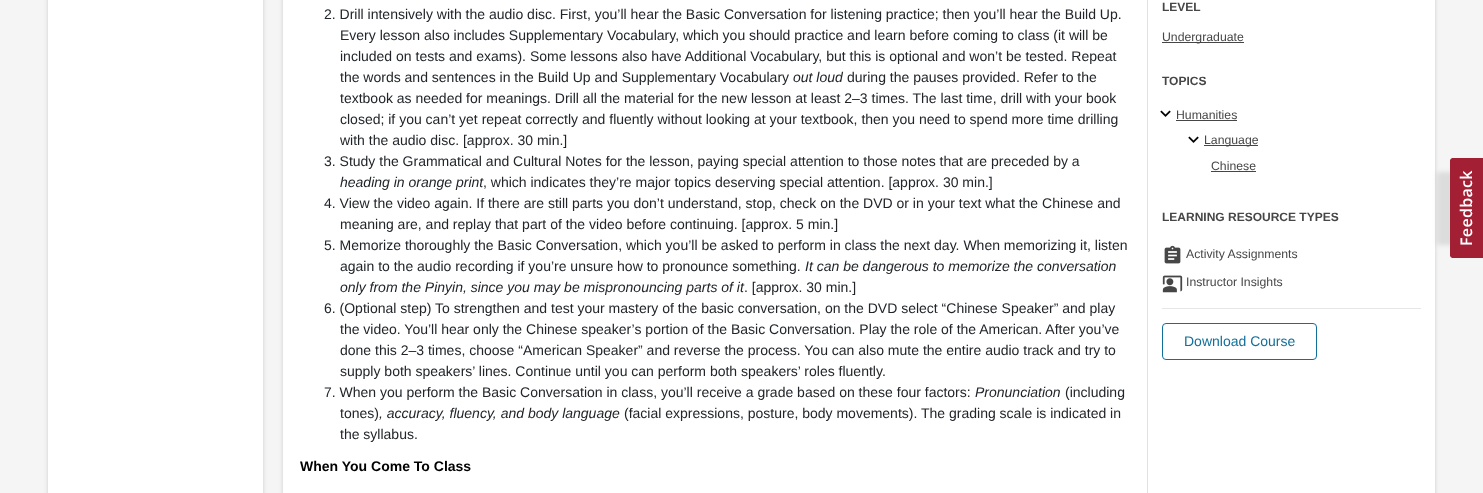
<svg xmlns="http://www.w3.org/2000/svg" width="1483" height="493">
<rect width="100%" height="100%" fill="#f5f5f5"/>
<rect x="48" y="-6" width="215" height="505" fill="#00000029" filter="blur(2px)"/>
<rect x="48" width="215" height="493" fill="#fff"/>
<rect x="283" y="-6" width="1152" height="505" fill="#00000029" filter="blur(2px)"/>
<rect x="283" width="1152" height="493" fill="#fff"/>
<text x="324" y="19" style="font-family:Liberation Sans;font-size:14px;fill:#212529">2. Drill intensively with the audio disc. First, you’ll hear the Basic Conversation for listening practice; then you’ll hear the Build Up.</text>
<text x="340" y="40" style="font-family:Liberation Sans;font-size:14px;fill:#212529">Every lesson also includes Supplementary Vocabulary, which you should practice and learn before coming to class (it will be</text>
<text x="340" y="61" style="font-family:Liberation Sans;font-size:14px;fill:#212529">included on tests and exams). Some lessons also have Additional Vocabulary, but this is optional and won’t be tested. Repeat</text>
<text x="340" y="82" style="font-family:Liberation Sans;font-size:14px;fill:#212529">the words and sentences in the Build Up and Supplementary Vocabulary</text>
<text x="793" y="82" style="font-family:Liberation Sans;font-size:14px;font-style:italic;fill:#212529">out loud</text>
<text x="847" y="82" style="font-family:Liberation Sans;font-size:14px;fill:#212529">during the pauses provided. Refer to the</text>
<text x="340" y="103" style="font-family:Liberation Sans;font-size:14px;fill:#212529">textbook as needed for meanings. Drill all the material for the new lesson at least 2–3 times. The last time, drill with your book</text>
<text x="340" y="124" style="font-family:Liberation Sans;font-size:14px;fill:#212529">closed; if you can’t yet repeat correctly and fluently without looking at your textbook, then you need to spend more time drilling</text>
<text x="340" y="145" style="font-family:Liberation Sans;font-size:14px;fill:#212529">with the audio disc. [approx. 30 min.]</text>
<text x="324" y="166" style="font-family:Liberation Sans;font-size:14px;fill:#212529">3. Study the Grammatical and Cultural Notes for the lesson, paying special attention to those notes that are preceded by a</text>
<text x="340" y="187" style="font-family:Liberation Sans;font-size:14px;font-style:italic;fill:#212529">heading in orange print</text>
<text x="483" y="187" style="font-family:Liberation Sans;font-size:14px;fill:#212529">, which indicates they’re major topics deserving special attention. [approx. 30 min.]</text>
<text x="324" y="208" style="font-family:Liberation Sans;font-size:14px;fill:#212529">4. View the video again. If there are still parts you don’t understand, stop, check on the DVD or in your text what the Chinese and</text>
<text x="340" y="229" style="font-family:Liberation Sans;font-size:14px;fill:#212529">meaning are, and replay that part of the video before continuing. [approx. 5 min.]</text>
<text x="324" y="250" style="font-family:Liberation Sans;font-size:14px;fill:#212529">5. Memorize thoroughly the Basic Conversation, which you’ll be asked to perform in class the next day. When memorizing it, listen</text>
<text x="340" y="271" style="font-family:Liberation Sans;font-size:14px;fill:#212529">again to the audio recording if you’re unsure how to pronounce something.</text>
<text x="805" y="271" style="font-family:Liberation Sans;font-size:14px;font-style:italic;fill:#212529">It can be dangerous to memorize the conversation</text>
<text x="340" y="292" style="font-family:Liberation Sans;font-size:14px;font-style:italic;fill:#212529">only from the Pinyin, since you may be mispronouncing parts of it</text>
<text x="744" y="292" style="font-family:Liberation Sans;font-size:14px;fill:#212529">. [approx. 30 min.]</text>
<text x="324" y="313" style="font-family:Liberation Sans;font-size:14px;fill:#212529">6. (Optional step) To strengthen and test your mastery of the basic conversation, on the DVD select “Chinese Speaker” and play</text>
<text x="340" y="334" style="font-family:Liberation Sans;font-size:14px;fill:#212529">the video. You’ll hear only the Chinese speaker’s portion of the Basic Conversation. Play the role of the American. After you’ve</text>
<text x="340" y="355" style="font-family:Liberation Sans;font-size:14px;fill:#212529">done this 2–3 times, choose “American Speaker” and reverse the process. You can also mute the entire audio track and try to</text>
<text x="340" y="376" style="font-family:Liberation Sans;font-size:14px;fill:#212529">supply both speakers’ lines. Continue until you can perform both speakers’ roles fluently.</text>
<text x="324" y="397" style="font-family:Liberation Sans;font-size:14px;fill:#212529">7. When you perform the Basic Conversation in class, you’ll receive a grade based on these four factors:</text>
<text x="975" y="397" style="font-family:Liberation Sans;font-size:14px;font-style:italic;fill:#212529">Pronunciation</text>
<text x="1065" y="397" style="font-family:Liberation Sans;font-size:14px;fill:#212529">(including</text>
<text x="340" y="418" style="font-family:Liberation Sans;font-size:14px;fill:#212529">tones)</text>
<text x="379" y="418" style="font-family:Liberation Sans;font-size:14px;font-style:italic;fill:#212529">, accuracy, fluency, and body language</text>
<text x="624" y="418" style="font-family:Liberation Sans;font-size:14px;fill:#212529">(facial expressions, posture, body movements). The grading scale is indicated in</text>
<text x="340" y="439" style="font-family:Liberation Sans;font-size:14px;fill:#212529">the syllabus.</text>
<text x="300" y="471" style="font-family:Liberation Sans;font-size:14px;font-weight:bold;fill:#000">When You Come To Class</text>
<rect x="1147" width="1" height="493" fill="#dee2e6"/>
<text x="1162" y="11" style="font-family:Liberation Sans;font-size:12px;font-weight:bold;fill:#464646">LEVEL</text>
<rect x="1162" y="42" width="82" height="1" fill="#464646"/>
<text x="1162" y="41" style="font-family:Liberation Sans;font-size:12.25px;fill:#464646">Undergraduate</text>
<text x="1162" y="85" style="font-family:Liberation Sans;font-size:12px;font-weight:bold;fill:#464646">TOPICS</text>
<image x="1160" y="110" width="11" height="7" href="media/1.png"/>
<text x="1176" y="119" style="font-family:Liberation Sans;font-size:12.25px;fill:#464646">Humanities</text>
<rect x="1176" y="120" width="61" height="1" fill="#464646"/>
<image x="1188" y="136" width="11" height="7" href="media/1.png"/>
<rect x="1204" y="145" width="54" height="1" fill="#464646"/>
<text x="1204" y="144" style="font-family:Liberation Sans;font-size:12.25px;fill:#464646">Language</text>
<text x="1211" y="170" style="font-family:Liberation Sans;font-size:12.25px;fill:#464646">Chinese</text>
<rect x="1211" y="171" width="45" height="1" fill="#464646"/>
<text x="1162" y="221" style="font-family:Liberation Sans;font-size:12px;font-weight:bold;fill:#464646">LEARNING RESOURCE TYPES</text>
<image x="1164" y="245" width="17" height="19" href="media/2.png"/>
<text x="1186" y="258" style="font-family:Liberation Sans;font-size:12.25px;fill:#464646">Activity Assignments</text>
<image x="1162" y="275" width="21" height="18" href="media/3.png"/>
<text x="1186" y="286" style="font-family:Liberation Sans;font-size:12.25px;fill:#464646">Instructor Insights</text>
<rect x="1162" y="308" width="259" height="1" fill="#e6e6e6"/>
<rect x="1162.5" y="323.5" width="154" height="36" rx="3.5" fill="none" stroke="#126f9a"/>
<text x="1184" y="346" style="font-family:Liberation Sans;font-size:14px;fill:#126f9a">Download Course</text>
<rect x="1437" y="172" width="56" height="73" rx="2" fill="#0000001a" filter="blur(2.5px)"/>
<image x="1450" y="158" width="33" height="100" href="media/4.png"/>
</svg>
